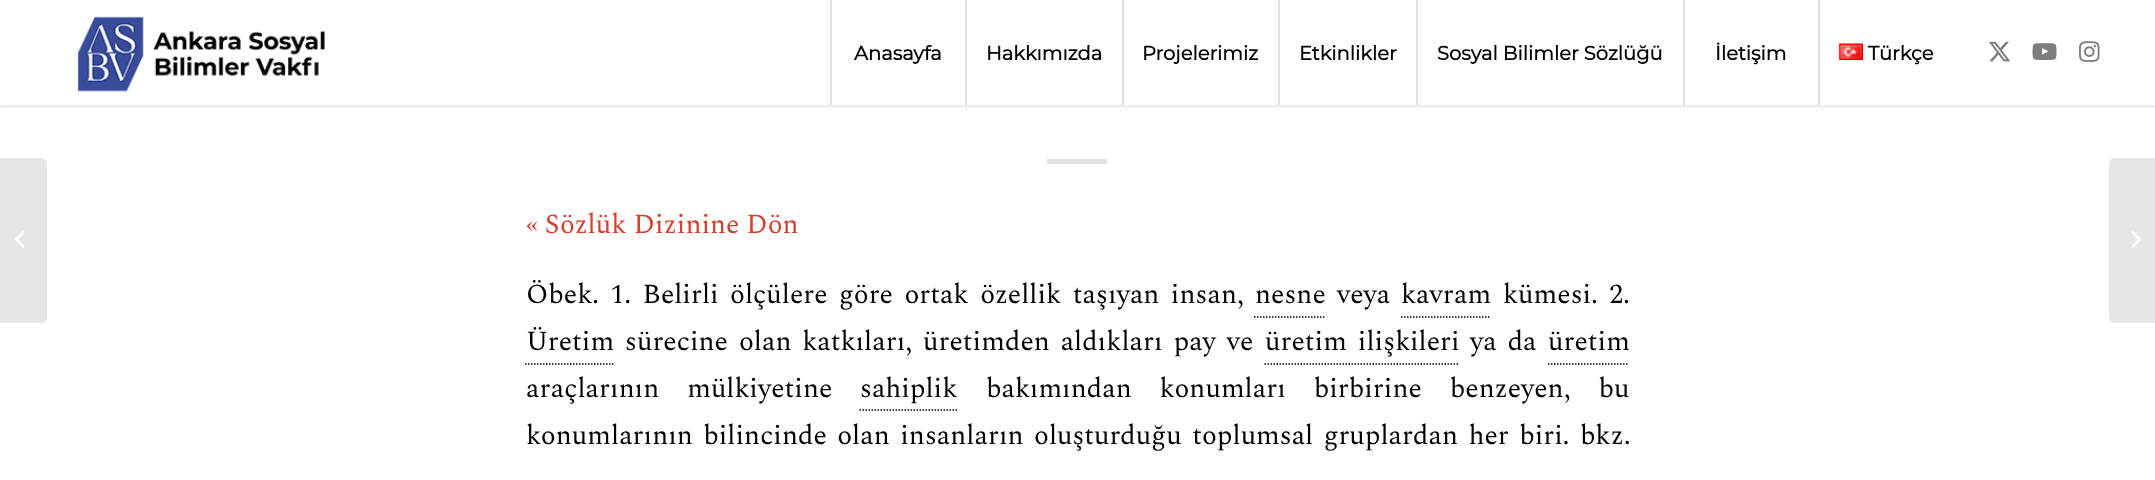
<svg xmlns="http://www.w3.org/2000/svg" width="2155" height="480">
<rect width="100%" height="100%" fill="#fff"/>
<rect x="-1" y="-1" width="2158" height="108" fill="#0000001a" filter="blur(1.5px)"/>
<rect width="2155" height="105" fill="#fff"/>
<image x="78" y="16" width="247" height="76" href="media/1.png"/>
<rect x="830" width="2" height="105" fill="#e1e1e1"/>
<text x="854" y="60" style="font-family:Montserrat;font-size:19.5px;font-weight:bold;fill:#000">Anasayfa</text>
<rect x="965" width="2" height="105" fill="#e1e1e1"/>
<text x="986" y="60" style="font-family:Montserrat;font-size:19.5px;font-weight:bold;fill:#000">Hakkımızda</text>
<rect x="1122" width="2" height="105" fill="#e1e1e1"/>
<text x="1142" y="60" style="font-family:Montserrat;font-size:19.5px;font-weight:bold;fill:#000">Projelerimiz</text>
<rect x="1278" width="2" height="105" fill="#e1e1e1"/>
<text x="1299" y="60" style="font-family:Montserrat;font-size:19.5px;font-weight:bold;fill:#000">Etkinlikler</text>
<rect x="1416" width="2" height="105" fill="#e1e1e1"/>
<text x="1437" y="60" style="font-family:Montserrat;font-size:19.5px;font-weight:bold;fill:#000">Sosyal Bilimler Sözlüğü</text>
<rect x="1683" width="2" height="105" fill="#e1e1e1"/>
<text x="1715" y="60" style="font-family:Montserrat;font-size:19.5px;font-weight:bold;fill:#000">İletişim</text>
<rect x="1818" width="2" height="105" fill="#e1e1e1"/>
<image x="1838" y="43" width="25" height="17" href="media/2.png"/>
<text x="1868" y="60" style="font-family:Montserrat;font-size:19.5px;font-weight:bold;fill:#000">Türkçe</text>
<image x="1989" y="41" width="22" height="21" href="media/3.png"/>
<image x="2032" y="43" width="25" height="18" href="media/4.png"/>
<image x="2079" y="41" width="21" height="21" href="media/5.png"/>
<path d="M0 158h41c3.5 0 6 2.5 6 6v153c0 3.5-2.5 6-6 6h-41z" fill="#e6e6e6"/>
<image x="15" y="231" width="10" height="17" href="media/6.png"/>
<rect x="1047" y="159" width="60" height="5" fill="#e1e1e1"/>
<text x="526" y="233" style="font-family:Spectral;font-size:27.6px;fill:#d63e2d">« Sözlük Dizinine Dön</text>
<text x="526" y="303" word-spacing="4.5" style="font-family:Spectral;font-size:27.6px;fill:#000">Öbek. 1. Belirli ölçülere göre ortak özellik taşıyan insan,</text>
<text x="1255" y="303" style="font-family:Spectral;font-size:27.6px;fill:#000">nesne</text>
<path d="M1254 317h72" fill="none" stroke="#000" stroke-width="1.5" stroke-dasharray="1.5 1.5"/>
<text x="1337" y="303" style="font-family:Spectral;font-size:27.6px;fill:#000">veya</text>
<text x="1401" y="303" style="font-family:Spectral;font-size:27.6px;fill:#000">kavram</text>
<path d="M1401 317h90" fill="none" stroke="#000" stroke-width="1.5" stroke-dasharray="1.5 1.5"/>
<text x="1503" y="303" word-spacing="4.5" style="font-family:Spectral;font-size:27.6px;fill:#000">kümesi. 2.</text>
<text x="526" y="350" style="font-family:Spectral;font-size:27.6px;fill:#000">Üretim</text>
<path d="M525 364h88.5" fill="none" stroke="#000" stroke-width="1.5" stroke-dasharray="1.5 1.5"/>
<text x="625" y="350" word-spacing="4" style="font-family:Spectral;font-size:27.6px;fill:#000">sürecine olan katkıları, üretimden aldıkları pay ve</text>
<text x="1265" y="350" word-spacing="4" style="font-family:Spectral;font-size:27.6px;fill:#000">üretim ilişkileri</text>
<path d="M1264.5 364h195" fill="none" stroke="#000" stroke-width="1.5" stroke-dasharray="1.5 1.5"/>
<text x="1470" y="350" word-spacing="4" style="font-family:Spectral;font-size:27.6px;fill:#000">ya da</text>
<text x="1548" y="350" style="font-family:Spectral;font-size:27.6px;fill:#000">üretim</text>
<path d="M1548 364h81" fill="none" stroke="#000" stroke-width="1.5" stroke-dasharray="1.5 1.5"/>
<text x="526" y="397" word-spacing="21" style="font-family:Spectral;font-size:27.6px;fill:#000">araçlarının mülkiyetine</text>
<text x="860" y="397" style="font-family:Spectral;font-size:27.6px;fill:#000">sahiplik</text>
<path d="M859.5 410h99" fill="none" stroke="#000" stroke-width="1.5" stroke-dasharray="1.5 1.5"/>
<text x="986" y="397" word-spacing="21" style="font-family:Spectral;font-size:27.6px;fill:#000">bakımından konumları birbirine benzeyen, bu</text>
<text x="526" y="444" word-spacing="3.5" style="font-family:Spectral;font-size:27.6px;fill:#000">konumlarının bilincinde olan insanların oluşturduğu toplumsal gruplardan her biri. bkz.</text>
<path d="M2115 158h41v165h-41c-3.5 0-6-2.5-6-6v-153c0-3.5 2.5-6 6-6z" fill="#e6e6e6"/>
<image x="2131" y="231" width="10" height="17" href="media/7.png"/>
</svg>
